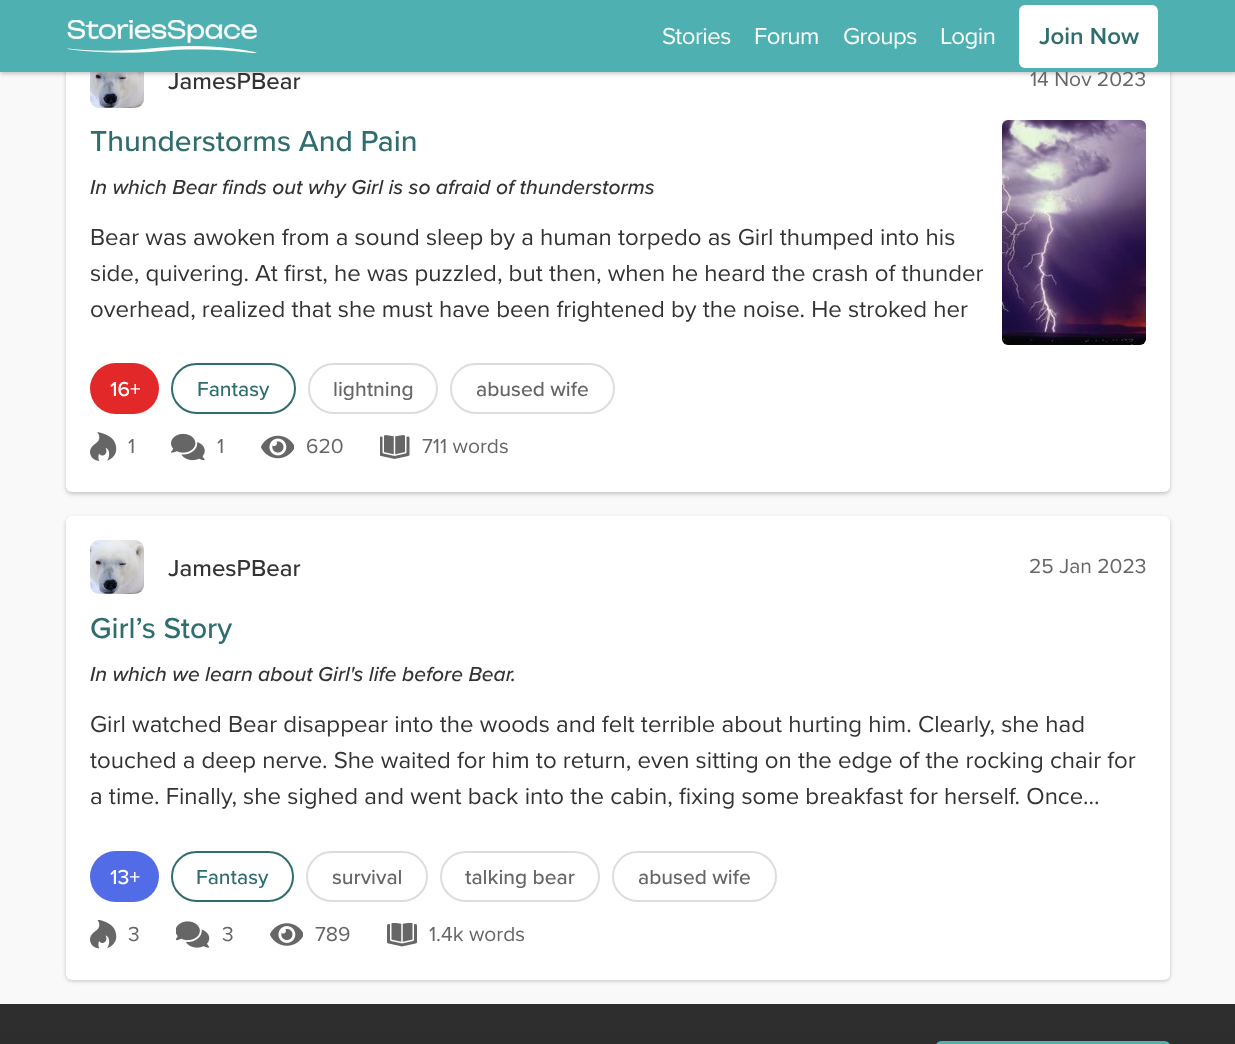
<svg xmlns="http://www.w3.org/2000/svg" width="1235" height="1044">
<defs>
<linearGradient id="g1" gradientUnits="userSpaceOnUse" x1="618" y1="1004" x2="618" y2="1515"><stop offset="0" stop-color="#2e2e2e"/><stop offset="1" stop-color="#212121"/></linearGradient>
</defs>
<rect width="100%" height="100%" fill="#f9f9f9"/>
<rect x="68" y="33" width="1101" height="459" rx="5" fill="#9c3a3a0f" filter="blur(1.5px)"/>
<rect x="66" y="32" width="1104" height="462" rx="6" fill="#00000033" filter="blur(2px)"/>
<rect x="66" y="30" width="1104" height="462" rx="6" fill="#fff"/>
<image x="90" y="72" width="54" height="36" href="media/2.png"/>
<rect x="2" y="3" width="1233" height="69" fill="#9c3a3a0f" filter="blur(1.5px)"/>
<rect y="2" width="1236" height="72" fill="#00000033" filter="blur(2px)"/>
<text x="1030" y="86" style="font-family:Proxima Nova;font-size:21px;fill:#666">14 Nov 2023</text>
<rect width="1235" height="72" fill="#4eb0b1"/>
<image x="67" y="20" width="190" height="33" href="media/1.png"/>
<text x="662" y="44" style="font-family:Proxima Nova;font-size:24px;letter-spacing:-0.5px;fill:#fff">Stories</text>
<text x="754" y="44" style="font-family:Proxima Nova;font-size:24px;letter-spacing:-0.5px;fill:#fff">Forum</text>
<text x="843" y="44" style="font-family:Proxima Nova;font-size:24px;letter-spacing:-0.5px;fill:#fff">Groups</text>
<text x="940" y="44" style="font-family:Proxima Nova;font-size:24px;letter-spacing:-0.5px;fill:#fff">Login</text>
<rect x="1019" y="5" width="139" height="63" rx="6" fill="#fff"/>
<text x="1039" y="44" style="font-family:Proxima Nova;font-size:24px;font-weight:600;fill:#306d6e">Join Now</text>
<text x="168" y="89" style="font-family:Proxima Nova;font-size:24px;font-weight:500;fill:#333">JamesPBear</text>
<text x="90" y="151" style="font-family:Proxima Nova;font-size:30px;font-weight:500;fill:#306d6e">Thunderstorms And Pain</text>
<text x="90" y="194" style="font-family:Proxima Nova;font-size:21px;font-weight:500;font-style:italic;fill:#333">In which Bear finds out why Girl is so afraid of thunderstorms</text>
<text x="90" y="245" style="font-family:Proxima Nova;font-size:24px;fill:#333">Bear was awoken from a sound sleep by a human torpedo as Girl thumped into his</text>
<text x="90" y="281" style="font-family:Proxima Nova;font-size:24px;fill:#333">side, quivering. At first, he was puzzled, but then, when he heard the crash of thunder</text>
<text x="90" y="317" style="font-family:Proxima Nova;font-size:24px;fill:#333">overhead, realized that she must have been frightened by the noise. He stroked her</text>
<image x="1002" y="120" width="144" height="225" href="media/3.png"/>
<rect x="90" y="363" width="69" height="51" rx="25.5" fill="#e22828"/>
<text x="110" y="396" style="font-family:Proxima Nova;font-size:21px;font-weight:500;fill:#fff">16+</text>
<rect x="172" y="364" width="123" height="49" rx="24.5" fill="none" stroke="#306d6e" stroke-width="2"/>
<text x="197" y="396" style="font-family:Proxima Nova;font-size:21px;font-weight:500;fill:#306d6e">Fantasy</text>
<rect x="309" y="364" width="128" height="49" rx="24.5" fill="none" stroke="#ddd" stroke-width="2"/>
<text x="333" y="396" style="font-family:Proxima Nova;font-size:21px;font-weight:500;fill:#666">lightning</text>
<rect x="451" y="364" width="163" height="49" rx="24.5" fill="none" stroke="#ddd" stroke-width="2"/>
<text x="476" y="396" style="font-family:Proxima Nova;font-size:21px;font-weight:500;fill:#666">abused wife</text>
<image x="90" y="432" width="27" height="29" href="media/4.png"/>
<text x="128" y="453" style="font-family:Proxima Nova;font-size:21px;fill:#666">1</text>
<image x="171" y="433" width="34" height="28" href="media/5.png"/>
<text x="217" y="453" style="font-family:Proxima Nova;font-size:21px;fill:#666">1</text>
<image x="261" y="435" width="33" height="24" href="media/6.png"/>
<text x="306" y="453" style="font-family:Proxima Nova;font-size:21px;fill:#666">620</text>
<image x="380" y="435" width="30" height="24" href="media/7.png"/>
<text x="422" y="453" style="font-family:Proxima Nova;font-size:21px;fill:#666">711 words</text>
<rect x="68" y="519" width="1101" height="461" rx="5" fill="#9c3a3a0f" filter="blur(1.5px)"/>
<rect x="66" y="518" width="1104" height="463" rx="6" fill="#00000033" filter="blur(2px)"/>
<rect x="66" y="516" width="1104" height="464" rx="6" fill="#fff"/>
<image x="90" y="540" width="54" height="54" href="media/8.png"/>
<text x="168" y="576" style="font-family:Proxima Nova;font-size:24px;font-weight:500;fill:#333">JamesPBear</text>
<text x="1029" y="573" style="font-family:Proxima Nova;font-size:21px;fill:#666">25 Jan 2023</text>
<text x="90" y="638" style="font-family:Proxima Nova;font-size:30px;font-weight:500;fill:#306d6e">Girl’s Story</text>
<text x="90" y="681" style="font-family:Proxima Nova;font-size:21px;font-weight:500;font-style:italic;fill:#333">In which we learn about Girl's life before Bear.</text>
<text x="90" y="732" style="font-family:Proxima Nova;font-size:24px;fill:#333">Girl watched Bear disappear into the woods and felt terrible about hurting him. Clearly, she had</text>
<text x="90" y="768" style="font-family:Proxima Nova;font-size:24px;fill:#333">touched a deep nerve. She waited for him to return, even sitting on the edge of the rocking chair for</text>
<text x="90" y="804" style="font-family:Proxima Nova;font-size:24px;fill:#333">a time. Finally, she sighed and went back into the cabin, fixing some breakfast for herself. Once…</text>
<rect x="90" y="851" width="69" height="51" rx="25.5" fill="#516ce6"/>
<text x="110" y="884" style="font-family:Proxima Nova;font-size:21px;font-weight:500;fill:#fff">13+</text>
<rect x="172" y="852" width="121" height="49" rx="24.5" fill="none" stroke="#306d6e" stroke-width="2"/>
<text x="196" y="884" style="font-family:Proxima Nova;font-size:21px;font-weight:500;fill:#306d6e">Fantasy</text>
<rect x="307" y="852" width="120" height="49" rx="24.5" fill="none" stroke="#ddd" stroke-width="2"/>
<text x="332" y="884" style="font-family:Proxima Nova;font-size:21px;font-weight:500;fill:#666">survival</text>
<rect x="441" y="852" width="158" height="49" rx="24.5" fill="none" stroke="#ddd" stroke-width="2"/>
<text x="465" y="884" style="font-family:Proxima Nova;font-size:21px;font-weight:500;fill:#666">talking bear</text>
<rect x="613" y="852" width="163" height="49" rx="24.5" fill="none" stroke="#ddd" stroke-width="2"/>
<text x="638" y="884" style="font-family:Proxima Nova;font-size:21px;font-weight:500;fill:#666">abused wife</text>
<image x="90" y="920" width="27" height="29" href="media/9.png"/>
<text x="128" y="941" style="font-family:Proxima Nova;font-size:21px;fill:#666">3</text>
<image x="176" y="921" width="34" height="27" href="media/10.png"/>
<text x="222" y="941" style="font-family:Proxima Nova;font-size:21px;fill:#666">3</text>
<image x="270" y="923" width="33" height="23" href="media/11.png"/>
<text x="315" y="941" style="font-family:Proxima Nova;font-size:21px;fill:#666">789</text>
<image x="387" y="923" width="30" height="24" href="media/12.png"/>
<text x="429" y="941" style="font-family:Proxima Nova;font-size:21px;fill:#666">1.4k words</text>
<rect y="1004" width="1235" height="40" fill="url(#g1)"/>
<rect x="936" y="1041" width="234" height="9" rx="6" fill="#4eb0b1"/>
</svg>
